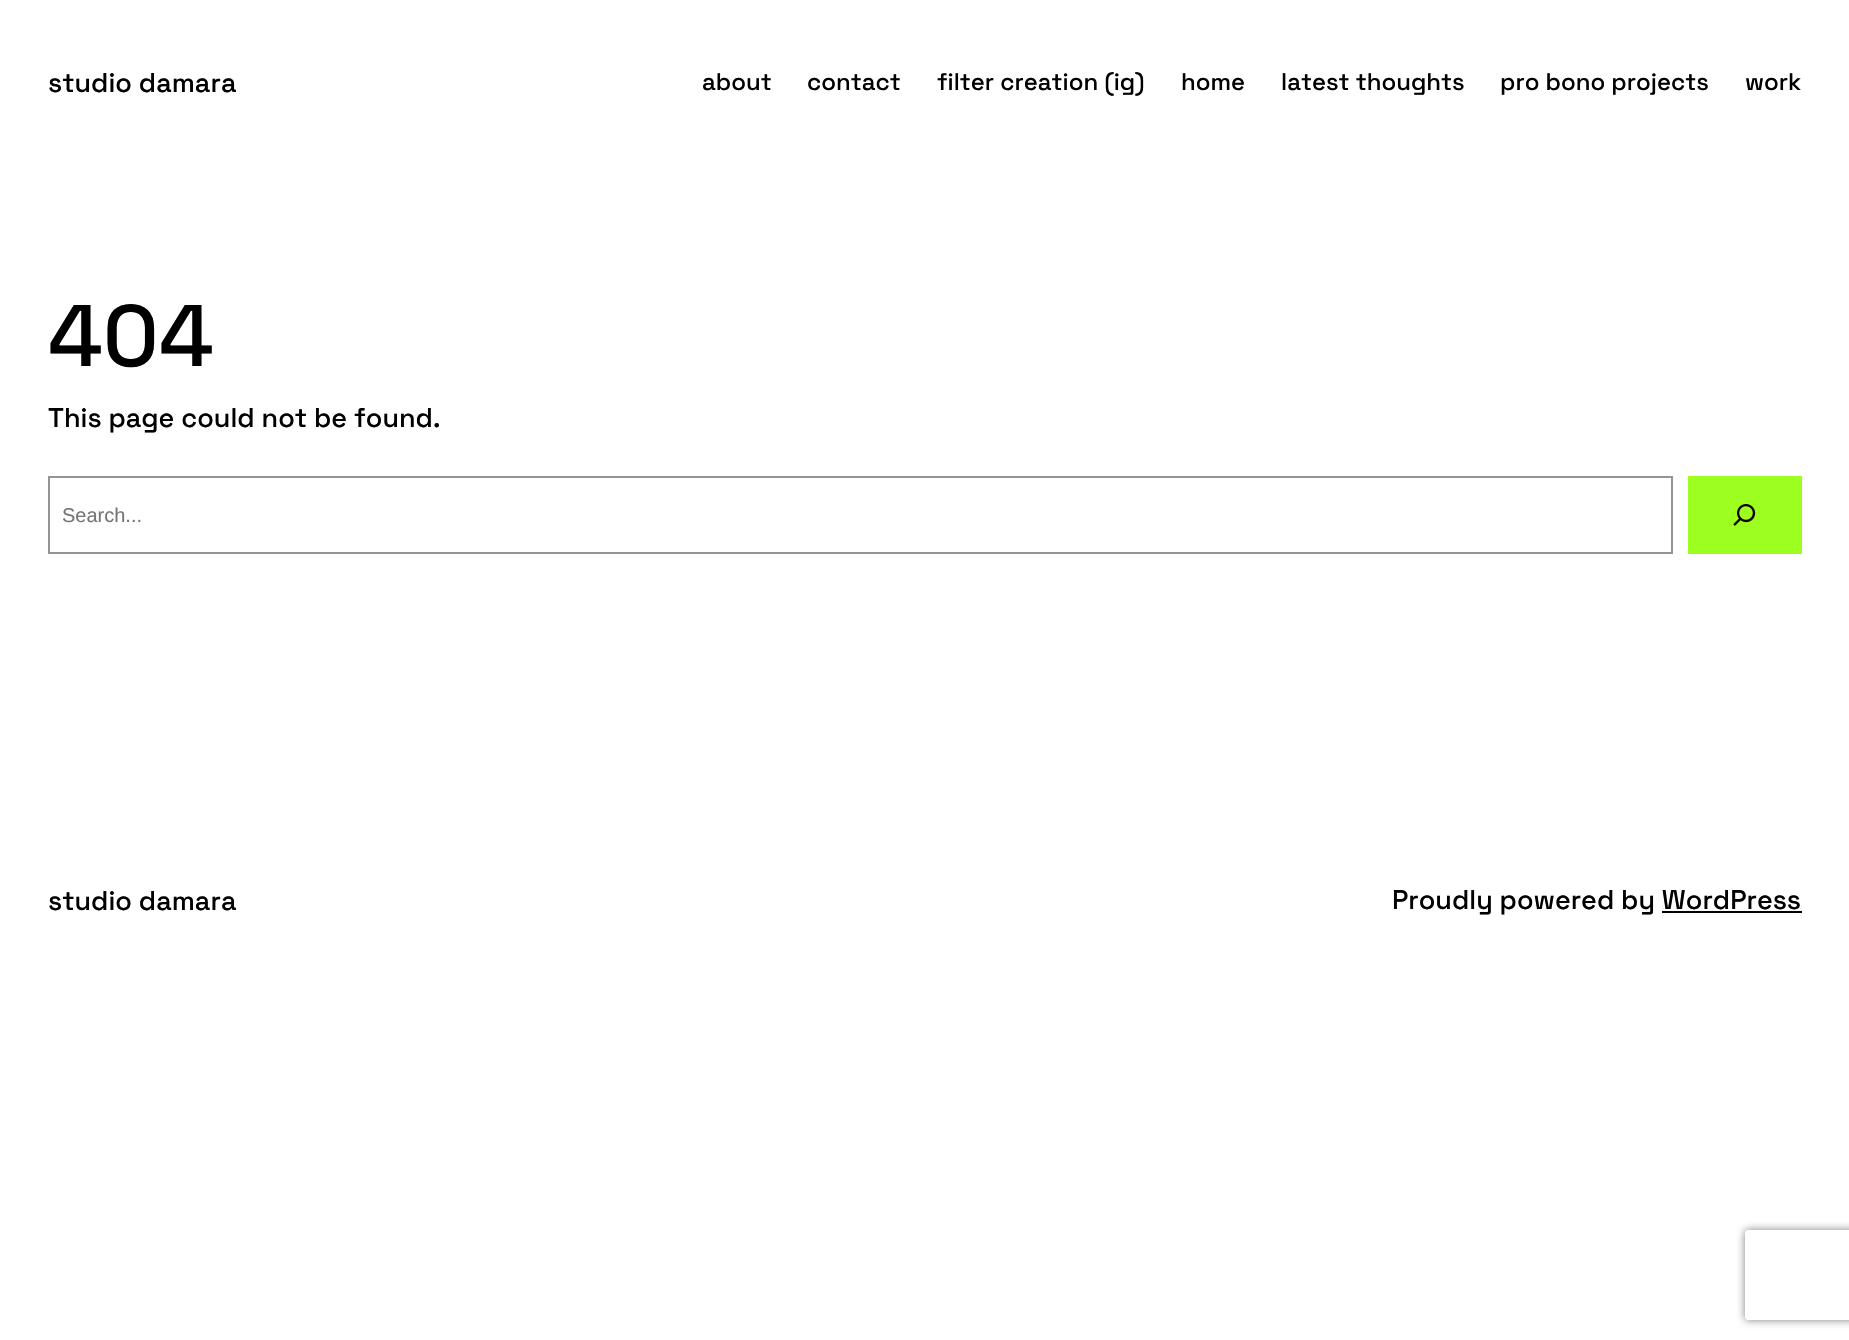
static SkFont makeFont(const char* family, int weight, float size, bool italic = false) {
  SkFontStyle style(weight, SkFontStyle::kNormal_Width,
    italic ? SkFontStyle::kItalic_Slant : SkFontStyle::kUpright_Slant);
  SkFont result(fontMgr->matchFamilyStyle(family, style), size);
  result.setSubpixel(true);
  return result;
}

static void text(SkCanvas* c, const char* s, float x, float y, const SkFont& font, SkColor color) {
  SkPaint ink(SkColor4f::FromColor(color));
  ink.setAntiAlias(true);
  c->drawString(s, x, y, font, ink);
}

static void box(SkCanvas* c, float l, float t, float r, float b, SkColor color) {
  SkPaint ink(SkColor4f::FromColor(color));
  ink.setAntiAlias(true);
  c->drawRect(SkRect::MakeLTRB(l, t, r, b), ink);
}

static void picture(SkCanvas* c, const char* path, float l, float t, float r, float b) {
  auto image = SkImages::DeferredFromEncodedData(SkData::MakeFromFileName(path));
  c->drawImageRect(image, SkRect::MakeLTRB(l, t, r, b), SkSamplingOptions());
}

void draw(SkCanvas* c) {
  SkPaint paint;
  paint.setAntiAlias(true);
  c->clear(0xffffffff);
  SkFont face1 = makeFont("Space Grotesk", 500, 27);
  text(c, "studio damara", 48, 92, face1, 0xff000000);
  SkFont face2 = makeFont("Space Grotesk", 500, 24);
  text(c, "about", 702, 90, face2, 0xff000000);
  text(c, "contact", 807, 90, face2, 0xff000000);
  text(c, "filter creation (ig)", 937, 90, face2, 0xff000000);
  text(c, "home", 1181, 90, face2, 0xff000000);
  text(c, "latest thoughts", 1281, 90, face2, 0xff000000);
  text(c, "pro bono projects", 1500, 90, face2, 0xff000000);
  text(c, "work", 1745, 90, face2, 0xff000000);
  SkFont face3 = makeFont("Space Grotesk", 500, 87);
  text(c, "404", 48, 366, face3, 0xff000000);
  text(c, "This page could not be found.", 48, 427, face1, 0xff000000);
  paint.setStyle(SkPaint::kStroke_Style);
  paint.setStrokeWidth(2);
  paint.setColor(0xff949494);
  c->drawRect(SkRect::MakeLTRB(49, 477, 1672, 553), paint);
  SkFont face4 = makeFont("Liberation Sans", 400, 20);
  text(c, "Search...", 62, 522, face4, 0xff757575);
  box(c, 1688, 476, 1802, 554, 0xff9dff20);
  picture(c, "img_01.png", 1733, 504, 1756, 526);
  text(c, "studio damara", 48, 910, face1, 0xff000000);
  text(c, "Proudly powered by WordPress", 1392, 909, face1, 0xff000000);
  box(c, 1662, 911, 1802, 913, 0xff000000);
  c->save();
  c->clipPath(SkPathBuilder(SkPathFillType::kEvenOdd).moveTo(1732, 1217).lineTo(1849, 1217).lineTo(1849, 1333).lineTo(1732, 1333).close().moveTo(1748, 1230).lineTo(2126, 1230).cubicTo(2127.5f, 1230, 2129, 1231.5f, 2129, 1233).lineTo(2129, 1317).cubicTo(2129, 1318.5f, 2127.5f, 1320, 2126, 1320).lineTo(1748, 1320).cubicTo(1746.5f, 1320, 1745, 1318.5f, 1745, 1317).lineTo(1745, 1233).cubicTo(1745, 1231.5f, 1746.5f, 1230, 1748, 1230).close().detach(), true);
  paint.setStyle(SkPaint::kFill_Style);
  paint.setColor(0xff808080);
  paint.setMaskFilter(SkMaskFilter::MakeBlur(kNormal_SkBlurStyle, 4));
  c->drawRoundRect(SkRect::MakeLTRB(1745, 1230, 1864, 1320), 3, 3, paint);
  paint.setMaskFilter(nullptr);
  c->restore();
}
